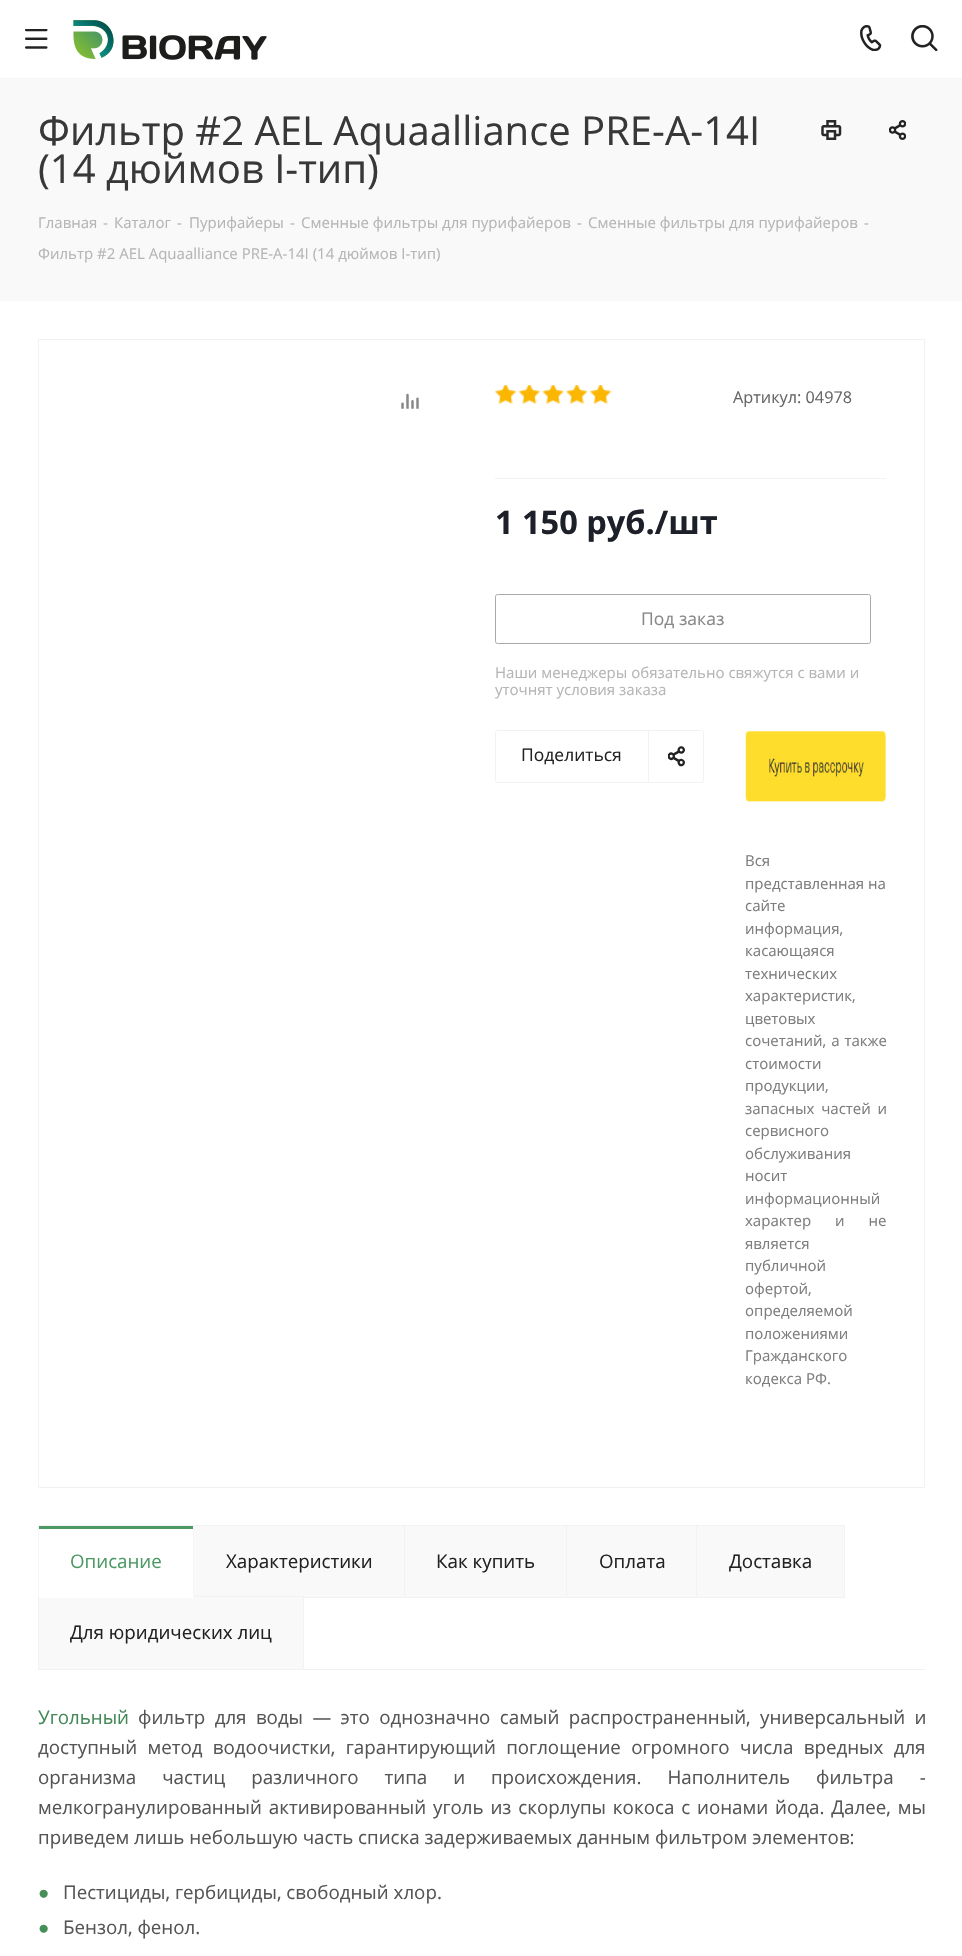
static SkFont makeFont(const char* family, int weight, float size, bool italic = false) {
  SkFontStyle style(weight, SkFontStyle::kNormal_Width,
    italic ? SkFontStyle::kItalic_Slant : SkFontStyle::kUpright_Slant);
  SkFont result(fontMgr->matchFamilyStyle(family, style), size);
  result.setSubpixel(true);
  return result;
}

static void text(SkCanvas* c, const char* s, float x, float y, const SkFont& font, SkColor color) {
  SkPaint ink(SkColor4f::FromColor(color));
  ink.setAntiAlias(true);
  c->drawString(s, x, y, font, ink);
}

static void spacedText(SkCanvas* c, const char* s, float x, float y, const SkFont& font, const SkPaint& ink, float letter, float word) {
  std::vector<SkGlyphID> glyphs(font.countText(s, strlen(s), SkTextEncoding::kUTF8));
  std::vector<float> xs(glyphs.size());
  font.textToGlyphs(s, strlen(s), SkTextEncoding::kUTF8, glyphs);
  font.getXPos(glyphs, xs, x);
  float extra = 0;
  for (size_t i = 0; i < glyphs.size(); i++) {
    xs[i] += extra;
    extra += letter + word * (glyphs[i] == font.unicharToGlyph(' '));
  }
  c->drawTextBlob(SkTextBlob::MakeFromPosHGlyphs(glyphs, xs, y, font), 0, 0, ink);
}

static void box(SkCanvas* c, float l, float t, float r, float b, SkColor color) {
  SkPaint ink(SkColor4f::FromColor(color));
  ink.setAntiAlias(true);
  c->drawRect(SkRect::MakeLTRB(l, t, r, b), ink);
}

static void picture(SkCanvas* c, const char* path, float l, float t, float r, float b) {
  auto image = SkImages::DeferredFromEncodedData(SkData::MakeFromFileName(path));
  c->drawImageRect(image, SkRect::MakeLTRB(l, t, r, b), SkSamplingOptions());
}

void draw(SkCanvas* c) {
  SkPaint paint;
  paint.setAntiAlias(true);
  c->clear(0xffffffff);
  box(c, 0, 78, 962, 79, 0xfff5f5f5);
  picture(c, "img_01.png", 25, 29, 48, 49);
  picture(c, "img_02.png", 73, 20, 267, 60);
  picture(c, "img_03.png", 860, 25, 882, 51);
  picture(c, "img_04.png", 911, 25, 938, 51);
  box(c, 0, 79, 962, 301, 0xfff9f9f9);
  SkFont face1 = makeFont("Open Sans", 400, 40);
  text(c, "Фильтр #2 AEL Aquaalliance PRE-A-14I", 38, 145, face1, 0xff383838);
  text(c, "(14 дюймов I-тип)", 38, 183, face1, 0xff383838);
  picture(c, "img_05.png", 821, 120, 842, 140);
  picture(c, "img_06.png", 889, 120, 906, 140);
  SkFont face2 = makeFont("Open Sans", 400, 15);
  text(c, "Главная", 38, 228, face2, 0xffb6b5b5);
  text(c, "-", 103, 228, face2, 0xffb6b5b5);
  text(c, "Каталог", 114, 228, face2, 0xffb6b5b5);
  text(c, "-", 177, 228, face2, 0xffb6b5b5);
  text(c, "Пурифайеры", 189, 228, face2, 0xffb6b5b5);
  text(c, "-", 290, 228, face2, 0xffb6b5b5);
  text(c, "Сменные фильтры для пурифайеров", 301, 228, face2, 0xffb6b5b5);
  text(c, "-", 577, 228, face2, 0xffb6b5b5);
  text(c, "Сменные фильтры для пурифайеров", 588, 228, face2, 0xffb6b5b5);
  text(c, "-", 864, 228, face2, 0xffb6b5b5);
  text(c, "Фильтр #2 AEL Aquaalliance PRE-A-14I (14 дюймов I-тип)", 38, 259, face2, 0xffb6b5b5);
  paint.setStyle(SkPaint::kStroke_Style);
  paint.setStrokeWidth(1);
  paint.setColor(0xfff2f2f2);
  c->drawRect(SkRect::MakeLTRB(38.5f, 339.5f, 924.5f, 1487.5f), paint);
  picture(c, "img_07.png", 401, 393, 419, 409);
  box(c, 495, 478, 886, 479, 0xfff2f2f2);
  picture(c, "img_08.png", 495, 385, 517, 404);
  picture(c, "img_09.png", 518, 385, 541, 404);
  picture(c, "img_10.png", 542, 385, 564, 404);
  picture(c, "img_11.png", 566, 385, 588, 404);
  picture(c, "img_12.png", 590, 385, 612, 404);
  SkFont face3 = makeFont("Open Sans", 400, 16.25f);
  text(c, "Артикул: 04978", 733, 403, face3, 0xff666666);
  SkFont face4 = makeFont("Open Sans", 700, 32.5f);
  text(c, "1 150 руб./шт", 495, 534, face4, 0xff1d2029);
  paint.setColor(0xffaaaaaa);
  c->drawRoundRect(SkRect::MakeLTRB(495.5f, 594.5f, 870.5f, 643.5f), 2, 2, paint);
  SkFont face5 = makeFont("Open Sans", 400, 17.5f);
  text(c, "Под заказ", 641, 625, face5, 0xff888888);
  text(c, "Наши менеджеры обязательно свяжутся с вами и", 495, 678, face2, 0xffb6b5b5);
  text(c, "уточнят условия заказа", 495, 695, face2, 0xffb6b5b5);
  box(c, 648, 730, 649, 783, 0xfff2f2f2);
  picture(c, "img_13.png", 668, 746, 685, 767);
  paint.setColor(0xfff2f2f2);
  c->drawRoundRect(SkRect::MakeLTRB(495.5f, 730.5f, 703.5f, 782.5f), 2, 2, paint);
  text(c, "Поделиться", 521, 761, face5, 0xff222222);
  picture(c, "img_14.png", 745, 731, 886, 802);
  text(c, "Вся", 745, 866, face2, 0xff7d7d7d);
  text(c, "представленная на", 745, 889, face2, 0xff7d7d7d);
  text(c, "сайте", 745, 911, face2, 0xff7d7d7d);
  text(c, "информация,", 745, 934, face2, 0xff7d7d7d);
  text(c, "касающаяся", 745, 956, face2, 0xff7d7d7d);
  text(c, "технических", 745, 979, face2, 0xff7d7d7d);
  text(c, "характеристик,", 745, 1001, face2, 0xff7d7d7d);
  text(c, "цветовых", 745, 1024, face2, 0xff7d7d7d);
  paint.setStyle(SkPaint::kFill_Style);
  paint.setColor(0xff7d7d7d);
  spacedText(c, "сочетаний, а также", 745, 1046, face2, paint, 0, 1);
  text(c, "стоимости", 745, 1069, face2, 0xff7d7d7d);
  text(c, "продукции,", 745, 1091, face2, 0xff7d7d7d);
  spacedText(c, "запасных частей и", 745, 1114, face2, paint, 0, 3);
  text(c, "сервисного", 745, 1136, face2, 0xff7d7d7d);
  text(c, "обслуживания", 745, 1159, face2, 0xff7d7d7d);
  text(c, "носит", 745, 1181, face2, 0xff7d7d7d);
  text(c, "информационный", 745, 1204, face2, 0xff7d7d7d);
  spacedText(c, "характер и не", 745, 1226, face2, paint, 0, 20);
  text(c, "является", 745, 1249, face2, 0xff7d7d7d);
  text(c, "публичной", 745, 1271, face2, 0xff7d7d7d);
  text(c, "офертой,", 745, 1294, face2, 0xff7d7d7d);
  text(c, "определяемой", 745, 1316, face2, 0xff7d7d7d);
  text(c, "положениями", 745, 1339, face2, 0xff7d7d7d);
  text(c, "Гражданского", 745, 1361, face2, 0xff7d7d7d);
  text(c, "кодекса РФ.", 745, 1384, face2, 0xff7d7d7d);
  box(c, 304, 1669, 925, 1670, 0xfff2f2f2);
  paint.setColor(0xfff9f9fa);
  c->drawRect(SkRect::MakeLTRB(193.5f, 1525.5f, 404.5f, 1597.5f), paint);
  paint.setStyle(SkPaint::kStroke_Style);
  paint.setColor(0xfff2f2f2);
  c->drawRect(SkRect::MakeLTRB(193.5f, 1525.5f, 404.5f, 1597.5f), paint);
  paint.setStyle(SkPaint::kFill_Style);
  paint.setColor(0xfff9f9fa);
  c->drawRect(SkRect::MakeLTRB(38.5f, 1596.5f, 303.5f, 1669.5f), paint);
  paint.setStyle(SkPaint::kStroke_Style);
  paint.setColor(0xfff2f2f2);
  c->drawRect(SkRect::MakeLTRB(38.5f, 1596.5f, 303.5f, 1669.5f), paint);
  box(c, 39, 1596, 193, 1598, 0xffffffff);
  box(c, 38, 1525, 194, 1526, 0xfff5f5f5);
  box(c, 193, 1525, 194, 1598, 0xfff5f5f5);
  box(c, 38, 1596, 194, 1597, 0xffffffff);
  box(c, 38, 1525, 39, 1598, 0xfff5f5f5);
  box(c, 39, 1526, 193, 1529, 0xff4c9963);
  SkFont face6 = makeFont("Open Sans", 400, 18.75f);
  text(c, "Описание", 70, 1568, face6, 0xff4c9963);
  text(c, "Характеристики", 226, 1568, face6, 0xff222222);
  box(c, 405, 1526, 566, 1597, 0xfff9f9fa);
  c->drawRect(SkRect::MakeLTRB(404.5f, 1525.5f, 567.5f, 1597.5f), paint);
  text(c, "Как купить", 436, 1568, face6, 0xff222222);
  box(c, 567, 1526, 696, 1597, 0xfff9f9fa);
  c->drawRect(SkRect::MakeLTRB(566.5f, 1525.5f, 697.5f, 1597.5f), paint);
  text(c, "Оплата", 599, 1568, face6, 0xff222222);
  paint.setStyle(SkPaint::kFill_Style);
  paint.setColor(0xfff9f9fa);
  c->drawRect(SkRect::MakeLTRB(696.5f, 1525.5f, 844.5f, 1597.5f), paint);
  paint.setStyle(SkPaint::kStroke_Style);
  paint.setColor(0xfff2f2f2);
  c->drawRect(SkRect::MakeLTRB(696.5f, 1525.5f, 844.5f, 1597.5f), paint);
  text(c, "Доставка", 729, 1568, face6, 0xff222222);
  text(c, "Для юридических лиц", 70, 1639, face6, 0xff222222);
  text(c, "Угольный", 38, 1724, face6, 0xff438958);
  paint.setStyle(SkPaint::kFill_Style);
  paint.setColor(0xff555555);
  spacedText(c, "фильтр для воды — это однозначно самый распространенный, универсальный и", 138, 1724, face6, paint, 0, 4.5f);
  spacedText(c, "доступный метод водоочистки, гарантирующий поглощение огромного числа вредных для", 38, 1754, face6, paint, 0, 5.5f);
  spacedText(c, "организма частиц различного типа и происхождения. Наполнитель фильтра -", 38, 1784, face6, paint, 0, 21);
  spacedText(c, "мелкогранулированный активированный уголь из скорлупы кокоса с ионами йода. Далее, мы", 38, 1814, face6, paint, 0, 2);
  text(c, "приведем лишь небольшую часть списка задерживаемых данным фильтром элементов:", 38, 1844, face6, 0xff555555);
  SkFont face7 = makeFont("Liberation Sans", 400, 18.75f);
  text(c, "●", 38, 1899, face7, 0xff469057);
  text(c, "Пестициды, гербициды, свободный хлор.", 63, 1899, face6, 0xff555555);
  text(c, "●", 38, 1934, face7, 0xff469057);
  text(c, "Бензол, фенол.", 63, 1934, face6, 0xff555555);
}
